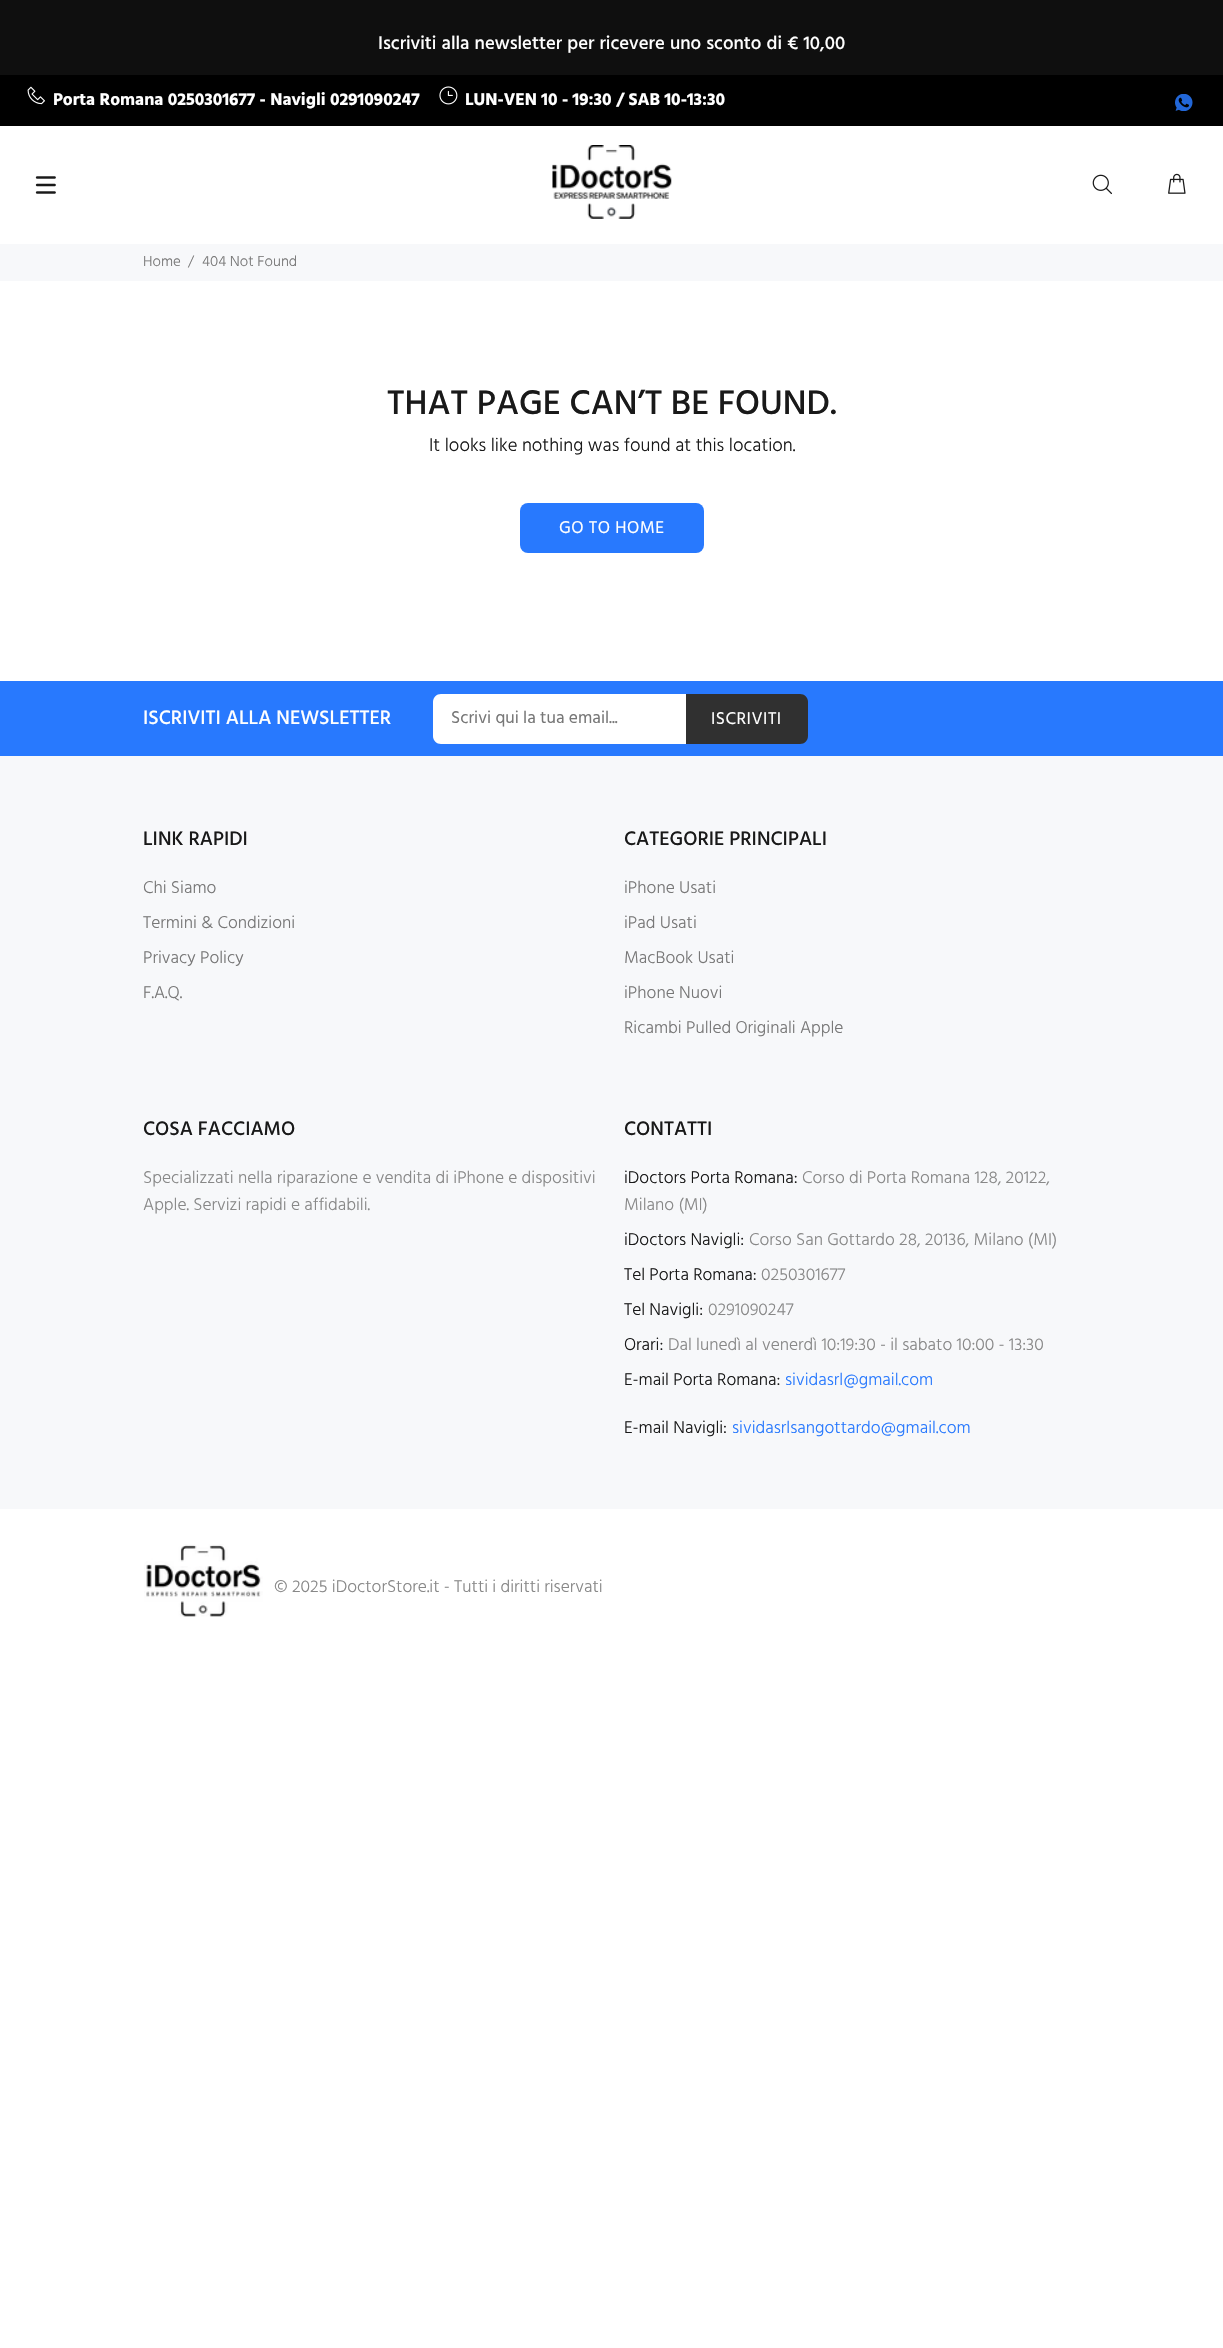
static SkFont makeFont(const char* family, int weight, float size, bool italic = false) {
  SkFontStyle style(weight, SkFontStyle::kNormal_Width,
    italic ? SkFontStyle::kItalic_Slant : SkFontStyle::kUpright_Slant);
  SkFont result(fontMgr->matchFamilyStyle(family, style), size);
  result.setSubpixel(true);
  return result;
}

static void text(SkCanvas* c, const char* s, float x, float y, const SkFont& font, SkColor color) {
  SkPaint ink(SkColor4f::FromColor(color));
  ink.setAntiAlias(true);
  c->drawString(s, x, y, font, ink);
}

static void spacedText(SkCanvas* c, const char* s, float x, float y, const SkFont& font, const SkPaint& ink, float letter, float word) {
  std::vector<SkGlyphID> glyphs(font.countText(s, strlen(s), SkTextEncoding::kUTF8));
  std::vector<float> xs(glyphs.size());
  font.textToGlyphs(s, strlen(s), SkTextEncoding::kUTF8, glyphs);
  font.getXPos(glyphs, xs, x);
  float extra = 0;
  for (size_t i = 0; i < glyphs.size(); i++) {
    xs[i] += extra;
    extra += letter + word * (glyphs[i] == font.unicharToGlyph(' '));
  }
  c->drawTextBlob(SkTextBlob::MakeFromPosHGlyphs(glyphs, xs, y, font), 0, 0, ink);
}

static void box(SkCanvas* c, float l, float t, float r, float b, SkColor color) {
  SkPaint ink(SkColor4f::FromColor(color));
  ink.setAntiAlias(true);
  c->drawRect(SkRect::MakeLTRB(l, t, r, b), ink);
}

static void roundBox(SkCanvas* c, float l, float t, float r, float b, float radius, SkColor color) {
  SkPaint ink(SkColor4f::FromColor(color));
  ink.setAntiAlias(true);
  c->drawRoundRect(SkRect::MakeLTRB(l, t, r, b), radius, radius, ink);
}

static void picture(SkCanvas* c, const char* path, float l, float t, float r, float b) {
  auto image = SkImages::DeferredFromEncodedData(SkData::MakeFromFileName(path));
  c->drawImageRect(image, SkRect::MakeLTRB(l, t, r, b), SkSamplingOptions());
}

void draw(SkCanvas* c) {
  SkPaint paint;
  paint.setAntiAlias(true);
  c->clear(0xffffffff);
  box(c, 0, 0, 1223, 75, 0xff0f0f0f);
  SkFont face1 = makeFont("Hind", 500, 18.75f);
  paint.setColor(0xffffffff);
  spacedText(c, "Iscriviti alla newsletter per ricevere uno sconto di € 10,00", 378, 49, face1, paint, 0, 0.5f);
  box(c, 0, 75, 1223, 126, 0xff000000);
  picture(c, "img_01.png", 27, 86, 45, 105);
  SkFont face2 = makeFont("Hind", 700, 17.5f);
  text(c, "Porta Romana 0250301677 - Navigli 0291090247", 53, 105, face2, 0xffffffff);
  picture(c, "img_02.png", 439, 86, 458, 105);
  text(c, "LUN-VEN 10 - 19:30 / SAB 10-13:30", 465, 105, face2, 0xffffffff);
  picture(c, "img_03.png", 1175, 94, 1193, 111);
  picture(c, "img_04.png", 35, 176, 56, 194);
  picture(c, "img_05.png", 552, 145, 672, 219);
  picture(c, "img_06.png", 1092, 174, 1112, 195);
  picture(c, "img_07.png", 1168, 173, 1186, 194);
  box(c, 0, 244, 1223, 281, 0xfff7f8fa);
  SkFont face3 = makeFont("Hind", 300, 15);
  text(c, "Home", 143, 266, face3, 0xff777777);
  text(c, "/", 188, 266, face3, 0xff777777);
  text(c, "404 Not Found", 202, 266, face3, 0xff777777);
  SkFont face4 = makeFont("Hind", 500, 35);
  text(c, "THAT PAGE CAN’T BE FOUND.", 387, 414, face4, 0xff191919);
  SkFont face5 = makeFont("Hind", 300, 18.75f);
  text(c, "It looks like nothing was found at this location.", 429, 451, face5, 0xff191919);
  roundBox(c, 520, 503, 704, 553, 8, 0xff2879fe);
  SkFont face6 = makeFont("Hind", 400, 17.5f);
  spacedText(c, "GO TO HOME", 559, 533, face6, paint, 0.5f, 0);
  box(c, 0, 756, 1223, 1509, 0xfff7f8fa);
  box(c, 0, 681, 1223, 756, 0xff2879fe);
  SkFont face7 = makeFont("Hind", 500, 20);
  text(c, "ISCRIVITI ALLA NEWSLETTER", 143, 724, face7, 0xffffffff);
  c->drawPath(SkPathBuilder().moveTo(441, 694).lineTo(686, 694).lineTo(686, 744).lineTo(441, 744).cubicTo(436.5f, 744, 433, 740.5f, 433, 736).lineTo(433, 702).cubicTo(433, 697.5f, 436.5f, 694, 441, 694).close().detach(), paint);
  text(c, "Scrivi qui la tua email...", 451, 723, face6, 0xff777777);
  paint.setColor(0xff303030);
  c->drawPath(SkPathBuilder().moveTo(686, 694).lineTo(800, 694).cubicTo(804.5f, 694, 808, 697.5f, 808, 702).lineTo(808, 736).cubicTo(808, 740.5f, 804.5f, 744, 800, 744).lineTo(686, 744).close().detach(), paint);
  paint.setColor(0xffffffff);
  spacedText(c, "ISCRIVITI", 711, 724, face6, paint, 0.5f, 0);
  text(c, "LINK RAPIDI", 143, 845, face7, 0xff191919);
  SkFont face8 = makeFont("Hind", 300, 17.5f);
  text(c, "Chi Siamo", 143, 893, face8, 0xff777777);
  text(c, "Termini & Condizioni", 143, 928, face8, 0xff777777);
  text(c, "Privacy Policy", 143, 963, face8, 0xff777777);
  text(c, "F.A.Q.", 143, 998, face8, 0xff777777);
  text(c, "CATEGORIE PRINCIPALI", 624, 845, face7, 0xff191919);
  text(c, "iPhone Usati", 624, 893, face8, 0xff777777);
  text(c, "iPad Usati", 624, 928, face8, 0xff777777);
  text(c, "MacBook Usati", 624, 963, face8, 0xff777777);
  text(c, "iPhone Nuovi", 624, 998, face8, 0xff777777);
  text(c, "Ricambi Pulled Originali Apple", 624, 1033, face8, 0xff777777);
  text(c, "COSA FACCIAMO", 143, 1135, face7, 0xff191919);
  text(c, "Specializzati nella riparazione e vendita di iPhone e dispositivi", 143, 1183, face8, 0xff888888);
  text(c, "Apple. Servizi rapidi e affidabili.", 143, 1210, face8, 0xff888888);
  text(c, "CONTATTI", 624, 1135, face7, 0xff191919);
  text(c, "iDoctors Porta Romana:", 624, 1183, face8, 0xff191919);
  text(c, "Corso di Porta Romana 128, 20122,", 802, 1183, face8, 0xff888888);
  text(c, "Milano (MI)", 624, 1210, face8, 0xff888888);
  text(c, "iDoctors Navigli:", 624, 1245, face8, 0xff191919);
  text(c, "Corso San Gottardo 28, 20136, Milano (MI)", 749, 1245, face8, 0xff888888);
  text(c, "Tel Porta Romana:", 624, 1280, face8, 0xff191919);
  text(c, "0250301677", 761, 1280, face8, 0xff888888);
  text(c, "Tel Navigli:", 624, 1315, face8, 0xff191919);
  text(c, "0291090247", 708, 1315, face8, 0xff888888);
  text(c, "Orari:", 624, 1350, face8, 0xff191919);
  text(c, "Dal lunedì al venerdì 10:19:30 - il sabato 10:00 - 13:30", 668, 1350, face8, 0xff888888);
  text(c, "E-mail Porta Romana:", 624, 1385, face8, 0xff191919);
  text(c, "sividasrl@gmail.com", 785, 1385, face8, 0xff2879fe);
  text(c, "E-mail Navigli:", 624, 1433, face8, 0xff191919);
  text(c, "sividasrlsangottardo@gmail.com", 732, 1433, face8, 0xff2879fe);
  picture(c, "img_08.png", 144, 1544, 263, 1617);
  text(c, "© 2025 iDoctorStore.it - Tutti i diritti riservati", 274, 1592, face8, 0xff888888);
}
